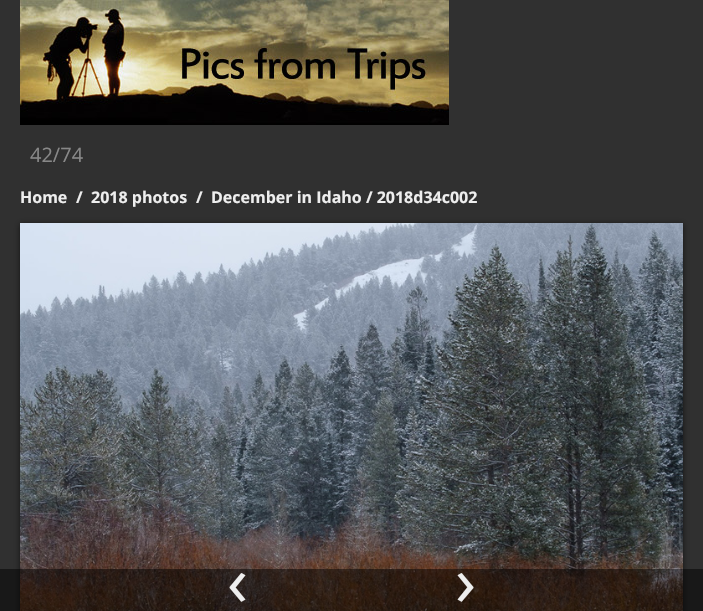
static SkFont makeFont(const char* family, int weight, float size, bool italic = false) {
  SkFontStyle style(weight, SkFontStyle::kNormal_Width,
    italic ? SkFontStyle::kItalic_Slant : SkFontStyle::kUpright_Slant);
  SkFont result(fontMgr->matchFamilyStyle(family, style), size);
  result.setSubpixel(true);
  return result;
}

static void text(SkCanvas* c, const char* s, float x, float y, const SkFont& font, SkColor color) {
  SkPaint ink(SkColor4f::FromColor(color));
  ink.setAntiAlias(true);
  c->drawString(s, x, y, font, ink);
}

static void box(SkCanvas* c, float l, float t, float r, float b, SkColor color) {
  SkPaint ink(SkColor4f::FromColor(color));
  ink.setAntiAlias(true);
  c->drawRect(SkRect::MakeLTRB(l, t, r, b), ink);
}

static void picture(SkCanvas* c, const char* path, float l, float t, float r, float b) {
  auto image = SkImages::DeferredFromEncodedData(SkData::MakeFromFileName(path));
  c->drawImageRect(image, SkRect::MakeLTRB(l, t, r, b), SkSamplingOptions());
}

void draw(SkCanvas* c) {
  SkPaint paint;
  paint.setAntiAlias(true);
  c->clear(0xff303030);
  picture(c, "img_01.png", 20, 0, 449, 125);
  SkFont face1 = makeFont("Open Sans", 400, 20);
  text(c, "42/74", 30, 162, face1, 0xff888888);
  SkFont face2 = makeFont("Open Sans", 700, 16);
  text(c, "Home", 20, 203, face2, 0xffeeeeee);
  text(c, "/", 76, 203, face2, 0xffeeeeee);
  text(c, "2018 photos", 91, 203, face2, 0xffeeeeee);
  text(c, "/", 196, 203, face2, 0xffeeeeee);
  text(c, "December in Idaho / 2018d34c002", 211, 203, face2, 0xffeeeeee);
  paint.setColor(0x99000000);
  paint.setMaskFilter(SkMaskFilter::MakeBlur(kNormal_SkBlurStyle, 3));
  c->drawRect(SkRect::MakeLTRB(20, 224, 683, 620), paint);
  paint.setMaskFilter(nullptr);
  picture(c, "img_02.png", 20, 223, 683, 611);
  box(c, 0, 569, 703, 611, 0x80000000);
  SkFont face3 = makeFont("Open Sans", 400, 70);
  text(c, "‹", 227, 606, face3, 0xffeeeeee);
  text(c, "›", 455, 606, face3, 0xffeeeeee);
}
